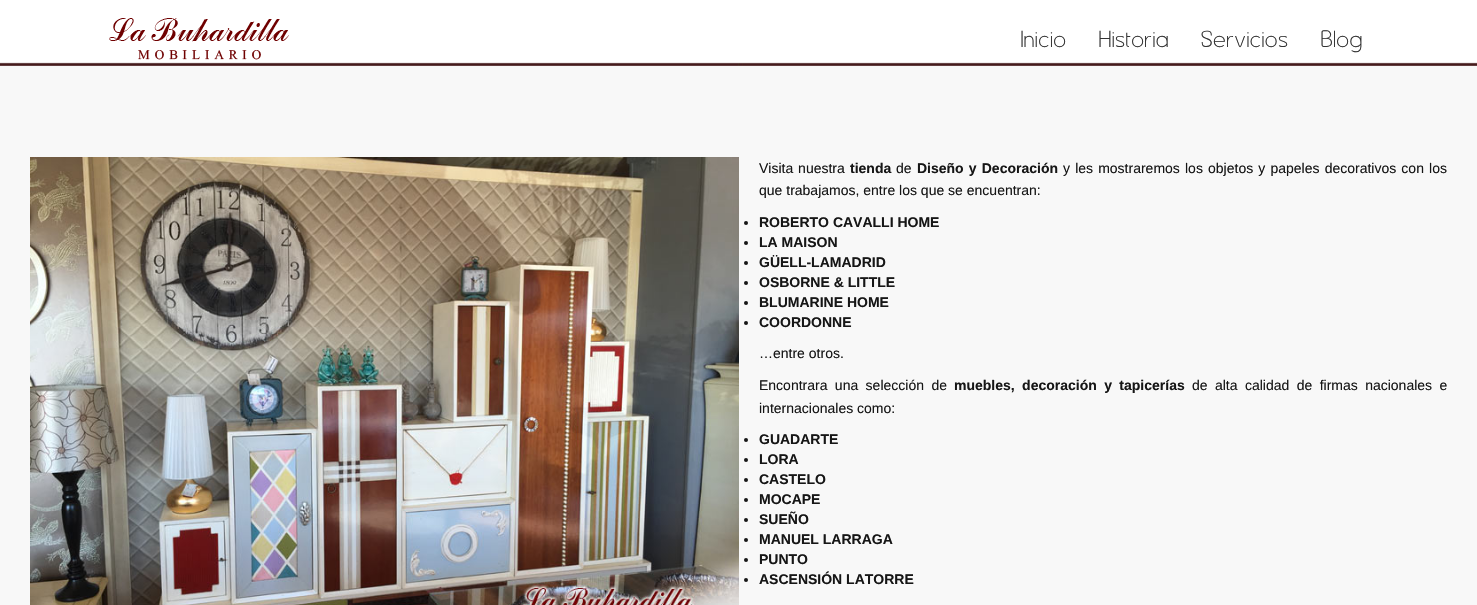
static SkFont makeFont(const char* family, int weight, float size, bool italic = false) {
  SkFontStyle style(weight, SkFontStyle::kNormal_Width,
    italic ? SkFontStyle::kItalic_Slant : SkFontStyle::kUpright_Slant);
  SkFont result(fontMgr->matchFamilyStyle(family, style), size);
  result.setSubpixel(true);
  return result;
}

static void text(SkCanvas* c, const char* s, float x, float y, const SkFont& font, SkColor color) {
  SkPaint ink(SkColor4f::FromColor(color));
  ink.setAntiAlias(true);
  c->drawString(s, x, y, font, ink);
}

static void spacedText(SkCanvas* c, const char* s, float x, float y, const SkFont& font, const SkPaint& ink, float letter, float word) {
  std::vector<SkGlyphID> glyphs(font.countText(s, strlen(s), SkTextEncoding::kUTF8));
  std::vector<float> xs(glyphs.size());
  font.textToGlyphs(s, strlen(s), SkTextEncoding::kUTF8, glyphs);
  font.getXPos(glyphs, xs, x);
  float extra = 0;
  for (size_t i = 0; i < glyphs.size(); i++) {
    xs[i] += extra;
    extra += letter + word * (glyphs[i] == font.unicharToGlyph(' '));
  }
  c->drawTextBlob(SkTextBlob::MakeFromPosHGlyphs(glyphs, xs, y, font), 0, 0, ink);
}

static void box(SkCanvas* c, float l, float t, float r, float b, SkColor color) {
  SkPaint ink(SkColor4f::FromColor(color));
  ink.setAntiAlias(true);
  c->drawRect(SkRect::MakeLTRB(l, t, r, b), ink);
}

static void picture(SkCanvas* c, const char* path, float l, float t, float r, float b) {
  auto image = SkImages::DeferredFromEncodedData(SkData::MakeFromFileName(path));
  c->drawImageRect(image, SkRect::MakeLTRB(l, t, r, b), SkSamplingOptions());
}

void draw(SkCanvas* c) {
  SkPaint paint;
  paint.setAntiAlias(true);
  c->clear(0xfff8f8f8);
  box(c, 0, 0, 1477, 66, 0xffffffff);
  picture(c, "img_01.png", 0, 62, 1477, 66);
  picture(c, "img_02.png", 109, 18, 289, 60);
  SkFont face1 = makeFont("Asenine", 400, 28);
  paint.setColor(0xff333333);
  spacedText(c, "Inicio", 1021, 47, face1, paint, 1, 0);
  spacedText(c, "Historia", 1099, 47, face1, paint, 1, 0);
  spacedText(c, "Servicios", 1201, 47, face1, paint, 1, 0);
  spacedText(c, "Blog", 1321, 47, face1, paint, 1, 0);
  picture(c, "img_03.png", 30, 157, 739, 605);
  SkFont face2 = makeFont("Liberation Sans", 400, 14);
  paint.setColor(0xff161616);
  spacedText(c, "Visita nuestra", 759, 173, face2, paint, 0, 1);
  SkFont face3 = makeFont("Liberation Sans", 700, 14);
  text(c, "tienda", 850, 173, face3, 0xff161616);
  text(c, "de", 896, 173, face2, 0xff161616);
  spacedText(c, "Diseño y Decoración", 917, 173, face3, paint, 0, 1.25f);
  spacedText(c, "y les mostraremos los objetos y papeles decorativos con los", 1063, 173, face2, paint, 0, 1.25f);
  text(c, "que trabajamos, entre los que se encuentran:", 759, 195, face2, 0xff161616);
  c->drawCircle(746, 223, 2, paint);
  text(c, "ROBERTO CAVALLI HOME", 759, 227, face3, 0xff161616);
  c->drawCircle(746, 243, 2, paint);
  text(c, "LA MAISON", 759, 247, face3, 0xff161616);
  c->drawCircle(746, 263, 2, paint);
  text(c, "GÜELL-LAMADRID", 759, 267, face3, 0xff161616);
  c->drawCircle(746, 283, 2, paint);
  text(c, "OSBORNE & LITTLE", 759, 287, face3, 0xff161616);
  c->drawCircle(746, 303, 2, paint);
  text(c, "BLUMARINE HOME", 759, 307, face3, 0xff161616);
  c->drawCircle(746, 323, 2, paint);
  text(c, "COORDONNE", 759, 327, face3, 0xff161616);
  text(c, "…entre otros.", 759, 358, face2, 0xff161616);
  spacedText(c, "Encontrara una selección de", 759, 390, face2, paint, 0, 3.5f);
  spacedText(c, "muebles, decoración y tapicerías", 954, 390, face3, paint, 0, 3.5f);
  spacedText(c, "de alta calidad de firmas nacionales e", 1192, 390, face2, paint, 0, 3.5f);
  text(c, "internacionales como:", 759, 413, face2, 0xff161616);
  c->drawCircle(746, 440, 2, paint);
  text(c, "GUADARTE", 759, 444, face3, 0xff161616);
  c->drawCircle(746, 460, 2, paint);
  text(c, "LORA", 759, 464, face3, 0xff161616);
  c->drawCircle(746, 480, 2, paint);
  text(c, "CASTELO", 759, 484, face3, 0xff161616);
  c->drawCircle(746, 500, 2, paint);
  text(c, "MOCAPE", 759, 504, face3, 0xff161616);
  c->drawCircle(746, 520, 2, paint);
  text(c, "SUEÑO", 759, 524, face3, 0xff161616);
  c->drawCircle(746, 540, 2, paint);
  text(c, "MANUEL LARRAGA", 759, 544, face3, 0xff161616);
  c->drawCircle(746, 560, 2, paint);
  text(c, "PUNTO", 759, 564, face3, 0xff161616);
  c->drawCircle(746, 580, 2, paint);
  text(c, "ASCENSIÓN LATORRE", 759, 584, face3, 0xff161616);
}
